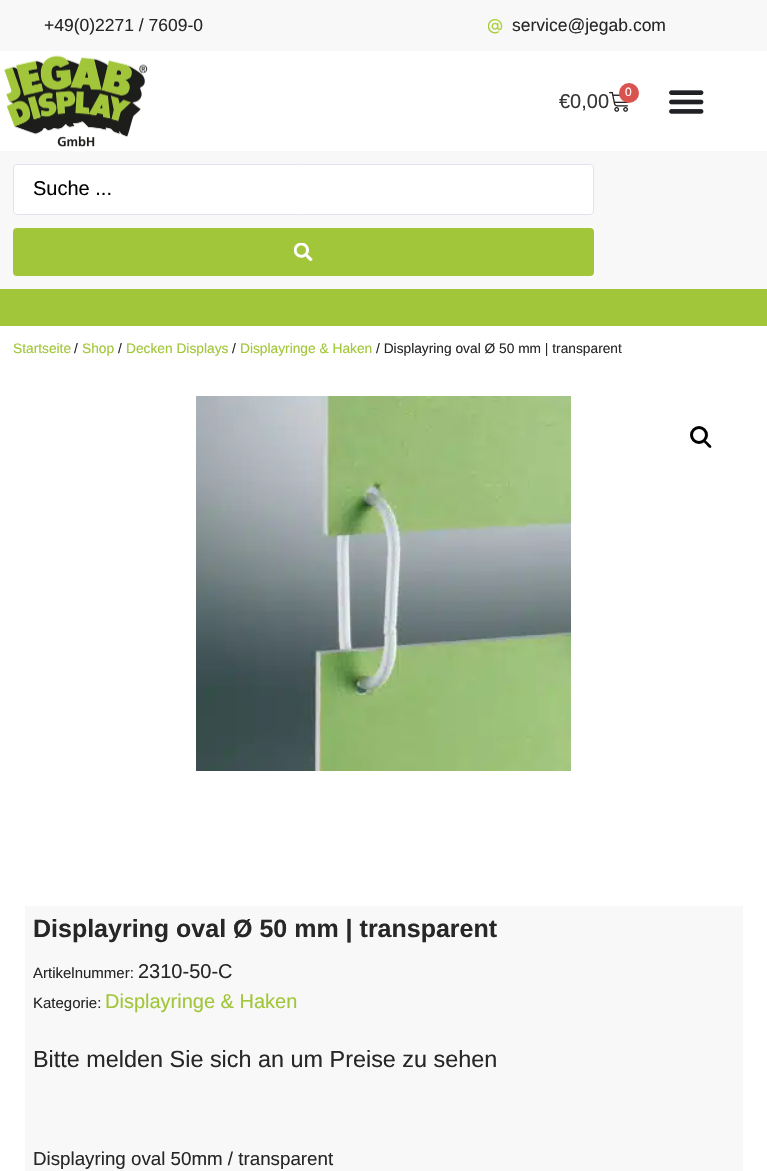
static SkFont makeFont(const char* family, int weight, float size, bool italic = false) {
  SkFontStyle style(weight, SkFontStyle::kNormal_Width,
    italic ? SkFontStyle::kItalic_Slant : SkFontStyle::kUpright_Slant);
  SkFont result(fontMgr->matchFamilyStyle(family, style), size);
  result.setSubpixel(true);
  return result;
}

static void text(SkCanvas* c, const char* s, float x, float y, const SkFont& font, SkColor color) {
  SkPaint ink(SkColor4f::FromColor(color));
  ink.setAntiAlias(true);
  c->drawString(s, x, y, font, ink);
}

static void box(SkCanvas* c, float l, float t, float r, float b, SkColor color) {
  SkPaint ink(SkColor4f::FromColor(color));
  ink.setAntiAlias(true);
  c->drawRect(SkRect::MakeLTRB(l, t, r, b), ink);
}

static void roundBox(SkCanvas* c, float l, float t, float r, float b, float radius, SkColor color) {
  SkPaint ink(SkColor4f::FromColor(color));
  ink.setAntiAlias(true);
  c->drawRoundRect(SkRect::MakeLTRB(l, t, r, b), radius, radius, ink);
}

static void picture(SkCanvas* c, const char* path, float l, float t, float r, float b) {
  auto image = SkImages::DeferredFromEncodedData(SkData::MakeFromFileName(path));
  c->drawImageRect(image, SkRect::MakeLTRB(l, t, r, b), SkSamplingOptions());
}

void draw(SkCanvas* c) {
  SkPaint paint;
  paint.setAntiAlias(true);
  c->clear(0xffffffff);
  box(c, 0, 0, 767, 51, 0xfff8f8f8);
  SkFont face1 = makeFont("Liberation Sans", 400, 17.5f);
  text(c, "+49(0)2271 / 7609-0", 44, 31, face1, 0xff272727);
  picture(c, "img_01.png", 488, 19, 503, 34);
  text(c, "service@jegab.com", 512, 31, face1, 0xff272727);
  picture(c, "img_02.png", 4, 55, 148, 147);
  picture(c, "img_03.png", 609, 91, 629, 112);
  paint.setColor(0xffd9534f);
  c->drawCircle(629, 93, 10, paint);
  SkFont face2 = makeFont("Liberation Sans", 400, 12);
  text(c, "0", 625, 96, face2, 0xffffffff);
  SkFont face3 = makeFont("Liberation Sans", 400, 20);
  text(c, "€0,00", 559, 108, face3, 0xff363636);
  picture(c, "img_04.png", 669, 90, 704, 114);
  box(c, 0, 151, 767, 289, 0xfff8f8f8);
  paint.setColor(0xffffffff);
  c->drawRoundRect(SkRect::MakeLTRB(13.5f, 164.5f, 593.5f, 214.5f), 3.5f, 3.5f, paint);
  paint.setStyle(SkPaint::kStroke_Style);
  paint.setStrokeWidth(1);
  paint.setColor(0xffe1e5eb);
  c->drawRoundRect(SkRect::MakeLTRB(13.5f, 164.5f, 593.5f, 214.5f), 3.5f, 3.5f, paint);
  text(c, "Suche ...", 33, 195, face3, 0xff000000);
  roundBox(c, 13, 228, 594, 276, 4, 0xffa2c63a);
  picture(c, "img_05.png", 294, 243, 313, 261);
  box(c, 0, 289, 767, 326, 0xffa2c63a);
  SkFont face4 = makeFont("Liberation Sans", 400, 13.75f);
  text(c, "Startseite", 13, 353, face4, 0xffa2c63a);
  text(c, "/", 74, 353, face4, 0xff272727);
  text(c, "Shop", 82, 353, face4, 0xffa2c63a);
  text(c, "/", 118, 353, face4, 0xff272727);
  text(c, "Decken Displays", 126, 353, face4, 0xffa2c63a);
  text(c, "/", 232, 353, face4, 0xff272727);
  text(c, "Displayringe & Haken", 240, 353, face4, 0xffa2c63a);
  text(c, "/ Displayring oval Ø 50 mm | transparent", 376, 353, face4, 0xff272727);
  picture(c, "img_06.png", 196, 396, 571, 771);
  paint.setStrokeWidth(3);
  paint.setColor(0xff000000);
  c->drawCircle(699, 435, 7.5f, paint);
  paint.setStyle(SkPaint::kFill_Style);
  c->drawPath(SkPathBuilder().moveTo(704, 440.5f).cubicTo(705.5f, 439, 707.5f, 442.5f, 708.5f, 443).cubicTo(709, 444, 712.5f, 446, 711, 447.5f).cubicTo(709.5f, 449, 707.5f, 446, 706.5f, 445).cubicTo(706, 444, 702.5f, 442, 704, 440.5f).close().detach(), paint);
  box(c, 25, 906, 743, 1171, 0xfff8f8f8);
  SkFont face5 = makeFont("Liberation Sans", 700, 25);
  text(c, "Displayring oval Ø 50 mm | transparent", 33, 937, face5, 0xff272727);
  SkFont face6 = makeFont("Liberation Sans", 400, 15);
  text(c, "Artikelnummer:", 33, 978, face6, 0xff272727);
  text(c, "2310-50-C", 138, 978, face3, 0xff272727);
  text(c, "Kategorie:", 33, 1008, face6, 0xff272727);
  text(c, "Displayringe & Haken", 105, 1008, face3, 0xffa2c63a);
  SkFont face7 = makeFont("Liberation Sans", 400, 23.4f);
  text(c, "Bitte melden Sie sich an um Preise zu sehen", 33, 1067, face7, 0xff272727);
  SkFont face8 = makeFont("Liberation Sans", 400, 18.75f);
  text(c, "Displayring oval 50mm / transparent", 33, 1165, face8, 0xff272727);
}
